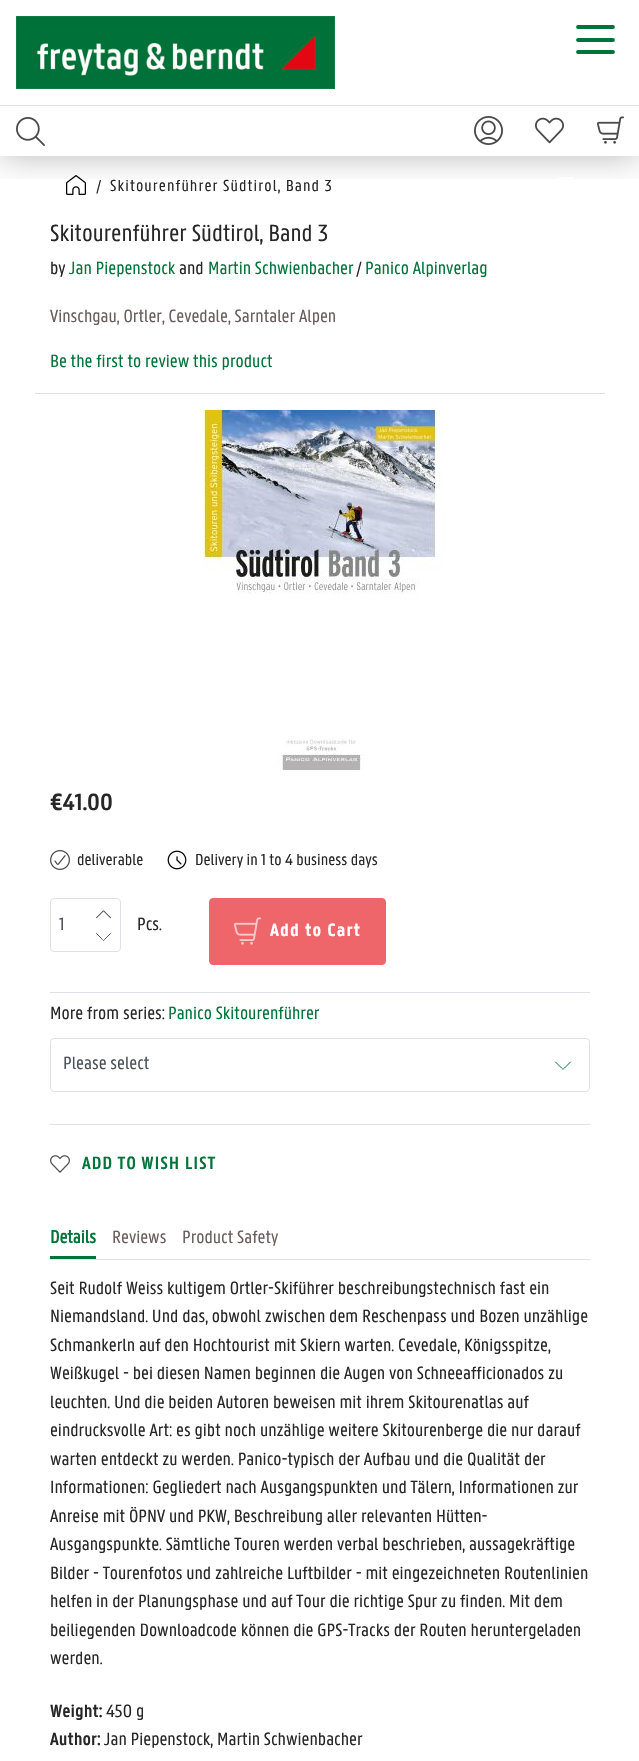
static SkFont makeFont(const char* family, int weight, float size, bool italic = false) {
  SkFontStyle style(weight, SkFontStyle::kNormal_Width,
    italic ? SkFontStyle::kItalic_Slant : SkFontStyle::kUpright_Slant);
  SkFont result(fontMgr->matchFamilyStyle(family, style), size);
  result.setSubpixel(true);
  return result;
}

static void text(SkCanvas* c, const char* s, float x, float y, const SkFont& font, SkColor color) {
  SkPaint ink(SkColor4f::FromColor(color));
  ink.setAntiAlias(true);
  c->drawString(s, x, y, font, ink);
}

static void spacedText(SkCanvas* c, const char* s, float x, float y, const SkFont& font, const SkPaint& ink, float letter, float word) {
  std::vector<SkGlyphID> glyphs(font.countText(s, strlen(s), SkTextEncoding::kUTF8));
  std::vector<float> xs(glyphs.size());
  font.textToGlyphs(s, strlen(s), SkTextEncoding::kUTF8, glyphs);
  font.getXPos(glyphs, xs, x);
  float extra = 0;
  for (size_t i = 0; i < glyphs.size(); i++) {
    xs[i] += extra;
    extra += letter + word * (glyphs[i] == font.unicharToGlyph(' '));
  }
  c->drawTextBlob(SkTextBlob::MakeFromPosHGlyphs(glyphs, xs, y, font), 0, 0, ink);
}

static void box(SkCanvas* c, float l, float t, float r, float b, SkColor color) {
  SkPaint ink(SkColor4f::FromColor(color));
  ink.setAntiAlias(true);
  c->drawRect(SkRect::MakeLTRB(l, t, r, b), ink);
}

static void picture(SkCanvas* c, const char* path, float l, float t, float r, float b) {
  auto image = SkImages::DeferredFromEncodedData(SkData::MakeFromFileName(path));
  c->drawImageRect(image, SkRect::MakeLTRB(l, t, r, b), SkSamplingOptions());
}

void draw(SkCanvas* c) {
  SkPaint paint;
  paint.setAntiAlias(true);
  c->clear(0xffffffff);
  c->save();
  c->clipRect(SkRect::MakeLTRB(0, 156, 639, 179));
  paint.setColor(0x47000000);
  paint.setMaskFilter(SkMaskFilter::MakeBlur(kNormal_SkBlurStyle, 16));
  c->drawRect(SkRect::MakeLTRB(0, 0, 639, 156), paint);
  paint.setMaskFilter(nullptr);
  c->restore();
  box(c, 0, 105, 639, 106, 0xffdee2e6);
  picture(c, "img_01.png", 16, 16, 335, 89);
  paint.setStyle(SkPaint::kStroke_Style);
  paint.setStrokeWidth(3.8f);
  paint.setStrokeCap(SkPaint::kRound_Cap);
  paint.setColor(0xff007339);
  c->drawPath(SkPathBuilder().moveTo(578, 27).lineTo(613, 27).moveTo(578, 40).lineTo(613, 40).moveTo(578, 52).lineTo(613, 52).detach(), paint);
  picture(c, "img_02.png", 16, 117, 45, 146);
  picture(c, "img_03.png", 474, 116, 503, 145);
  picture(c, "img_04.png", 535, 117, 564, 144);
  picture(c, "img_05.png", 596, 116, 624, 144);
  picture(c, "img_06.png", 66, 175, 86, 195);
  SkFont face1 = makeFont("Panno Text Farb", 400, 17);
  paint.setStyle(SkPaint::kFill_Style);
  paint.setColor(0xff272626);
  spacedText(c, "/", 97, 191, face1, paint, 1.05f, 0);
  spacedText(c, "Skitourenführer Südtirol, Band 3", 110, 191, face1, paint, 1.05f, 0);
  {
    const SkColor colors[] = {0x00ffffff, 0xffffffff};
    const float stops[] = {0, 1};
    const SkPoint ends[] = {{544, 186}, {574, 186}};
    paint.setShader(SkGradientShader::MakeLinear(ends, colors, stops, 2, SkTileMode::kClamp));
    paint.setAlpha(255);
  }
  c->drawRect(SkRect::MakeLTRB(556, 177, 574, 184), paint);
  box(c, 35, 393, 605, 394, 0xffdee2e6);
  SkFont face2 = makeFont("Panno Text Farb", 400, 25);
  text(c, "Skitourenführer Südtirol, Band 3", 50, 241, face2, 0xff272626);
  SkFont face3 = makeFont("Panno Text Farb", 400, 19);
  text(c, "by", 50, 274, face3, 0xff272626);
  text(c, "Jan Piepenstock", 69, 274, face3, 0xff007339);
  text(c, "and", 179, 274, face3, 0xff272626);
  text(c, "Martin Schwienbacher", 208, 274, face3, 0xff007339);
  text(c, "/", 357, 274, face3, 0xff272626);
  text(c, "Panico Alpinverlag", 365, 274, face3, 0xff007339);
  text(c, "Vinschgau, Ortler, Cevedale, Sarntaler Alpen", 50, 322, face3, 0xff685d5d);
  text(c, "Be the first to review this product", 50, 367, face3, 0xff007339);
  picture(c, "img_07.png", 203, 410, 444, 770);
  SkFont face4 = makeFont("Panno Text Farb", 600, 25);
  text(c, "€41.00", 50, 810, face4, 0xff272626);
  picture(c, "img_08.png", 50, 850, 70, 870);
  text(c, "deliverable", 77, 865, face1, 0xff272626);
  picture(c, "img_09.png", 167, 850, 187, 870);
  text(c, "Delivery in 1 to 4 business days", 195, 865, face1, 0xff272626);
  paint.setStyle(SkPaint::kStroke_Style);
  paint.setStrokeWidth(1);
  paint.setStrokeCap(SkPaint::kButt_Cap);
  paint.setShader(nullptr);
  paint.setColor(0xffdee2e6);
  c->drawRoundRect(SkRect::MakeLTRB(50.5f, 898.5f, 120.5f, 951.5f), 3.5f, 3.5f, paint);
  picture(c, "img_10.png", 96, 910, 111, 919);
  text(c, "1", 59, 930, face3, 0xff495057);
  paint.setStrokeWidth(0.9f);
  paint.setStrokeCap(SkPaint::kRound_Cap);
  paint.setStrokeJoin(SkPaint::kRound_Join);
  paint.setColor(0xff4a4a4a);
  c->drawPath(SkPathBuilder().moveTo(110.5f, 933.5f).lineTo(105, 939).cubicTo(103.5f, 941, 103.5f, 941, 102, 939).lineTo(96.5f, 933.5f).detach(), paint);
  text(c, "Pcs.", 137, 930, face3, 0xff272626);
  paint.setStyle(SkPaint::kFill_Style);
  paint.setColor(0xffef666a);
  c->drawRoundRect(SkRect::MakeLTRB(209.5f, 898.5f, 385.5f, 964.5f), 3.5f, 3.5f, paint);
  paint.setStyle(SkPaint::kStroke_Style);
  paint.setStrokeWidth(1);
  paint.setStrokeCap(SkPaint::kButt_Cap);
  paint.setStrokeJoin(SkPaint::kMiter_Join);
  c->drawRoundRect(SkRect::MakeLTRB(209.5f, 898.5f, 385.5f, 964.5f), 3.5f, 3.5f, paint);
  picture(c, "img_11.png", 233, 917, 261, 945);
  SkFont face5 = makeFont("Panno Text Farb", 700, 19);
  paint.setStyle(SkPaint::kFill_Style);
  paint.setColor(0xffffffff);
  spacedText(c, "Add to Cart", 270, 936, face5, paint, 1.1f, 0);
  box(c, 50, 992, 590, 993, 0xffdee2e6);
  box(c, 50, 1124, 590, 1125, 0xffdee2e6);
  text(c, "More from series:", 50, 1019, face3, 0xff272626);
  text(c, "Panico Skitourenführer", 168, 1019, face3, 0xff007339);
  paint.setStyle(SkPaint::kStroke_Style);
  paint.setStrokeCap(SkPaint::kRound_Cap);
  paint.setStrokeJoin(SkPaint::kRound_Join);
  paint.setColor(0xff007339);
  c->drawPath(SkPathBuilder().moveTo(570.5f, 1062).lineTo(564.5f, 1068).cubicTo(563, 1069.5f, 563, 1069.5f, 561.5f, 1068).lineTo(555.5f, 1062).detach(), paint);
  paint.setStrokeCap(SkPaint::kButt_Cap);
  paint.setStrokeJoin(SkPaint::kMiter_Join);
  paint.setColor(0xffdee2e6);
  c->drawRoundRect(SkRect::MakeLTRB(50.5f, 1038.5f, 589.5f, 1091.5f), 3.5f, 3.5f, paint);
  text(c, "Please select", 63, 1069, face3, 0xff495057);
  picture(c, "img_12.png", 50, 1155, 70, 1173);
  SkFont face6 = makeFont("Panno Text Farb", 600, 19);
  paint.setStyle(SkPaint::kFill_Style);
  paint.setColor(0xff007339);
  spacedText(c, "ADD TO WISH LIST", 82, 1169, face6, paint, 0.8f, 0);
  box(c, 50, 1259, 590, 1260, 0xffdee2e6);
  SkFont face7 = makeFont("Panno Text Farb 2", 700, 19);
  text(c, "Details", 50, 1243, face7, 0xff007339);
  box(c, 50, 1256, 96, 1259, 0xff007339);
  text(c, "Reviews", 112, 1243, face3, 0xff685d5d);
  text(c, "Product Safety", 182, 1243, face3, 0xff685d5d);
  text(c, "Seit Rudolf Weiss kultigem Ortler-Skiführer beschreibungstechnisch fast ein", 50, 1294, face3, 0xff272626);
  text(c, "Niemandsland. Und das, obwohl zwischen dem Reschenpass und Bozen unzählige", 50, 1322, face3, 0xff272626);
  text(c, "Schmankerln auf den Hochtourist mit Skiern warten. Cevedale, Königsspitze,", 50, 1351, face3, 0xff272626);
  text(c, "Weißkugel - bei diesen Namen beginnen die Augen von Schneeafficionados zu", 50, 1379, face3, 0xff272626);
  text(c, "leuchten. Und die beiden Autoren beweisen mit ihrem Skitourenatlas auf", 50, 1408, face3, 0xff272626);
  text(c, "eindrucksvolle Art: es gibt noch unzählige weitere Skitourenberge die nur darauf", 50, 1436, face3, 0xff272626);
  text(c, "warten entdeckt zu werden. Panico-typisch der Aufbau und die Qualität der", 50, 1465, face3, 0xff272626);
  text(c, "Informationen: Gegliedert nach Ausgangspunkten und Tälern, Informationen zur", 50, 1493, face3, 0xff272626);
  text(c, "Anreise mit ÖPNV und PKW, Beschreibung aller relevanten Hütten-", 50, 1522, face3, 0xff272626);
  text(c, "Ausgangspunkte. Sämtliche Touren werden verbal beschrieben, aussagekräftige", 50, 1550, face3, 0xff272626);
  text(c, "Bilder - Tourenfotos und zahlreiche Luftbilder - mit eingezeichneten Routenlinien", 50, 1579, face3, 0xff272626);
  text(c, "helfen in der Planungsphase und auf Tour die richtige Spur zu finden. Mit dem", 50, 1607, face3, 0xff272626);
  text(c, "beiliegenden Downloadcode können die GPS-Tracks der Routen heruntergeladen", 50, 1636, face3, 0xff272626);
  text(c, "werden.", 50, 1664, face3, 0xff272626);
  text(c, "Weight:", 50, 1717, face6, 0xff272626);
  text(c, "450 g", 106, 1717, face3, 0xff272626);
  text(c, "Author:", 50, 1745, face6, 0xff272626);
  text(c, "Jan Piepenstock, Martin Schwienbacher", 104, 1745, face3, 0xff272626);
}
